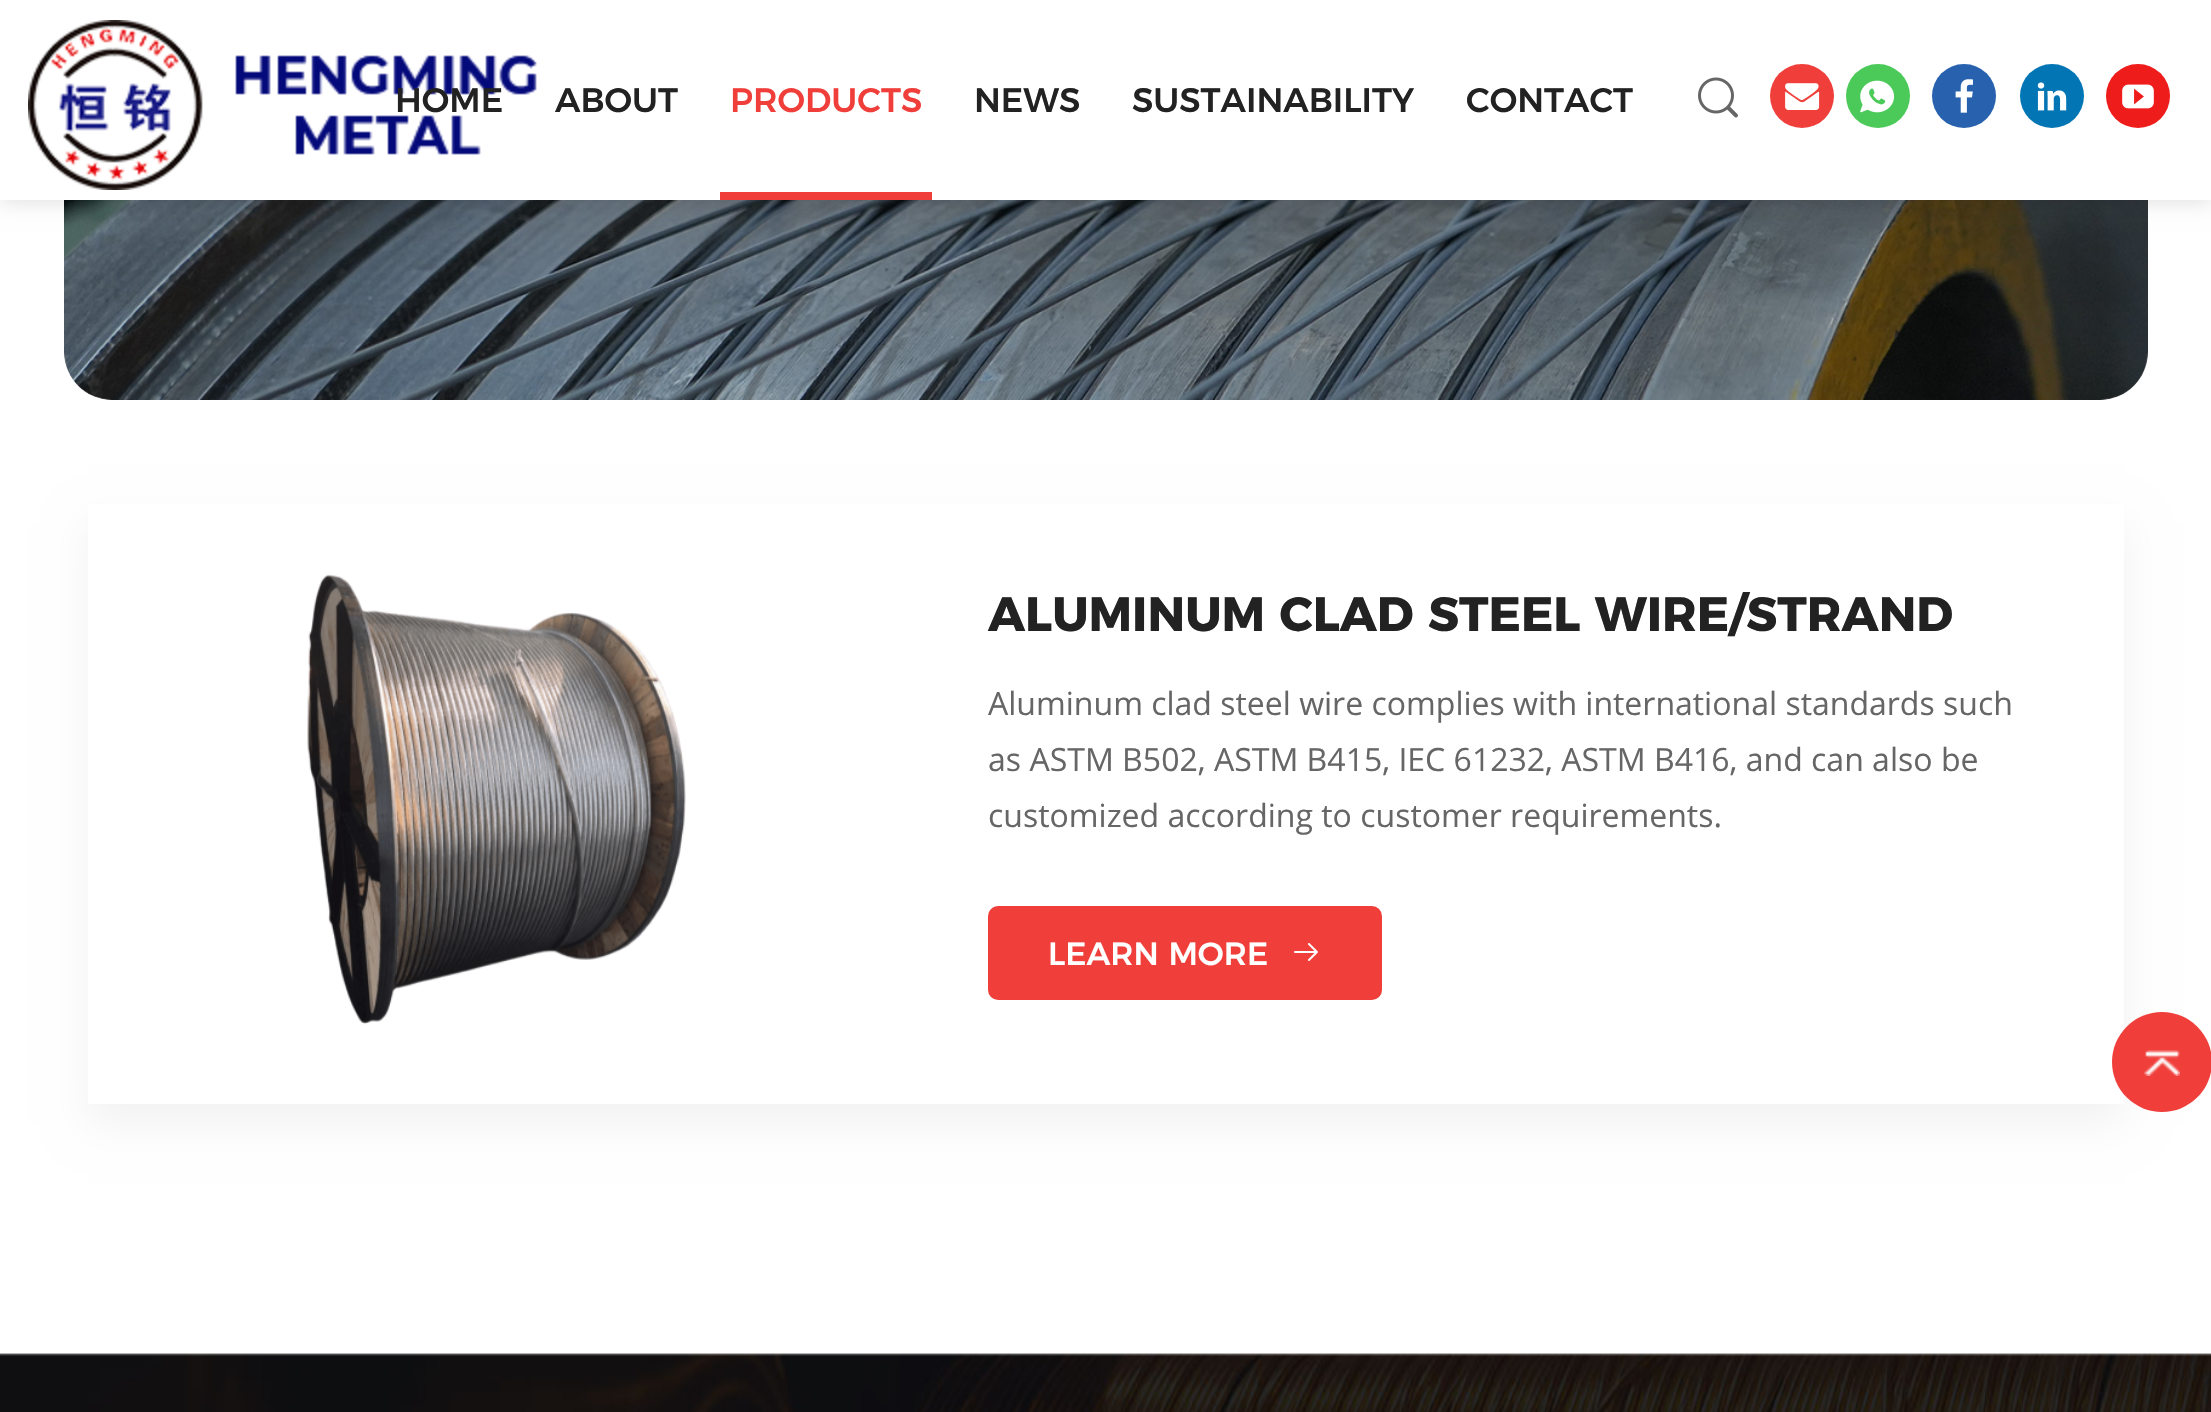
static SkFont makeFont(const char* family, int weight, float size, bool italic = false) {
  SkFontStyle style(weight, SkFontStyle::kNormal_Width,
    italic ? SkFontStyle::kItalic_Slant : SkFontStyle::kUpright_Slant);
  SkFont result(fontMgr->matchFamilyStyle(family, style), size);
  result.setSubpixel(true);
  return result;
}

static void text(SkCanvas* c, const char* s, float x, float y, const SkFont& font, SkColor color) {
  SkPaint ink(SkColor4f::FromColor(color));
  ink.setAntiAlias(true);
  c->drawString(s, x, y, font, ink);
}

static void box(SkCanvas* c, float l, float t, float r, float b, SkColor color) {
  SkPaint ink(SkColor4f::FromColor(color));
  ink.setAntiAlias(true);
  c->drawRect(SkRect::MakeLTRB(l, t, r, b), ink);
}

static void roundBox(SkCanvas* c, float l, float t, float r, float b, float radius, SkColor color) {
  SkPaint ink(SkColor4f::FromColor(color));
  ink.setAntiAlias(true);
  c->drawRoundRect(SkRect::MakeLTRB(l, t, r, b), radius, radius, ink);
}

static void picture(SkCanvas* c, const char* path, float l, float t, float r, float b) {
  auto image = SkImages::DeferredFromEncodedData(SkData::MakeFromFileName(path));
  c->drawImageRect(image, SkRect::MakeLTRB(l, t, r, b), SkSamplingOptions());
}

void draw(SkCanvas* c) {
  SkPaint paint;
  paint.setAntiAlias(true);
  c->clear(0xffffffff);
  picture(c, "img_08.png", 64, 200, 2148, 400);
  paint.setColor(0x1f000000);
  paint.setMaskFilter(SkMaskFilter::MakeBlur(kNormal_SkBlurStyle, 10));
  c->drawRect(SkRect::MakeLTRB(0, 2, 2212, 202), paint);
  paint.setMaskFilter(nullptr);
  box(c, 0, 0, 2211, 200, 0xffffffff);
  picture(c, "img_01.png", 28, 20, 537, 190);
  SkFont face1 = makeFont("Montserrat", 500, 34);
  text(c, "HOME", 395, 112, face1, 0xff222222);
  text(c, "ABOUT", 555, 112, face1, 0xff222222);
  text(c, "PRODUCTS", 730, 112, face1, 0xfff03f3b);
  box(c, 720, 192, 932, 200, 0xfff03f3b);
  text(c, "NEWS", 974, 112, face1, 0xff222222);
  text(c, "SUSTAINABILITY", 1132, 112, face1, 0xff222222);
  text(c, "CONTACT", 1466, 112, face1, 0xff222222);
  picture(c, "img_02.png", 1698, 77, 1738, 118);
  paint.setColor(0xfff03f3b);
  c->drawCircle(1802, 96, 32, paint);
  picture(c, "img_03.png", 1785, 83, 1820, 110);
  paint.setColor(0xff4bca59);
  c->drawCircle(1878, 96, 32, paint);
  picture(c, "img_04.png", 1860, 80, 1895, 113);
  paint.setColor(0xff2862ae);
  c->drawCircle(1964, 96, 32, paint);
  picture(c, "img_05.png", 1955, 79, 1973, 113);
  paint.setColor(0xff0275b4);
  c->drawCircle(2052, 96, 32, paint);
  picture(c, "img_06.png", 2037, 82, 2067, 111);
  paint.setColor(0xffee1c1b);
  c->drawCircle(2138, 96, 32, paint);
  picture(c, "img_07.png", 2122, 84, 2154, 109);
  c->save();
  c->clipPath(SkPathBuilder(SkPathFillType::kEvenOdd).moveTo(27, 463).lineTo(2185, 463).lineTo(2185, 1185).lineTo(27, 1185).close().moveTo(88, 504).lineTo(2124, 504).lineTo(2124, 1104).lineTo(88, 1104).close().detach(), true);
  paint.setColor(0x0d000000);
  paint.setMaskFilter(SkMaskFilter::MakeBlur(kNormal_SkBlurStyle, 20));
  c->drawRect(SkRect::MakeLTRB(88, 524, 2124, 1124), paint);
  paint.setMaskFilter(nullptr);
  c->restore();
  picture(c, "img_09.png", 307, 574, 686, 1025);
  SkFont face2 = makeFont("Montserrat", 700, 48);
  text(c, "ALUMINUM CLAD STEEL WIRE/STRAND", 988, 631, face2, 0xff222222);
  SkFont face3 = makeFont("Open Sans", 400, 32);
  text(c, "Aluminum clad steel wire complies with international standards such", 988, 715, face3, 0xff666666);
  text(c, "as ASTM B502, ASTM B415, IEC 61232, ASTM B416, and can also be", 988, 771, face3, 0xff666666);
  text(c, "customized according to customer requirements.", 988, 827, face3, 0xff666666);
  roundBox(c, 988, 906, 1382, 1000, 10, 0xfff03f3b);
  SkFont face4 = makeFont("Montserrat", 500, 32);
  text(c, "LEARN MORE", 1048, 965, face4, 0xffffffff);
  picture(c, "img_10.png", 1294, 943, 1318, 961);
  paint.setColor(0xfff03f3b);
  c->drawCircle(2162, 1062, 50, paint);
  picture(c, "img_11.png", 2144, 1050, 2180, 1076);
  picture(c, "img_12.png", 0, 1353, 2211, 1412);
}
